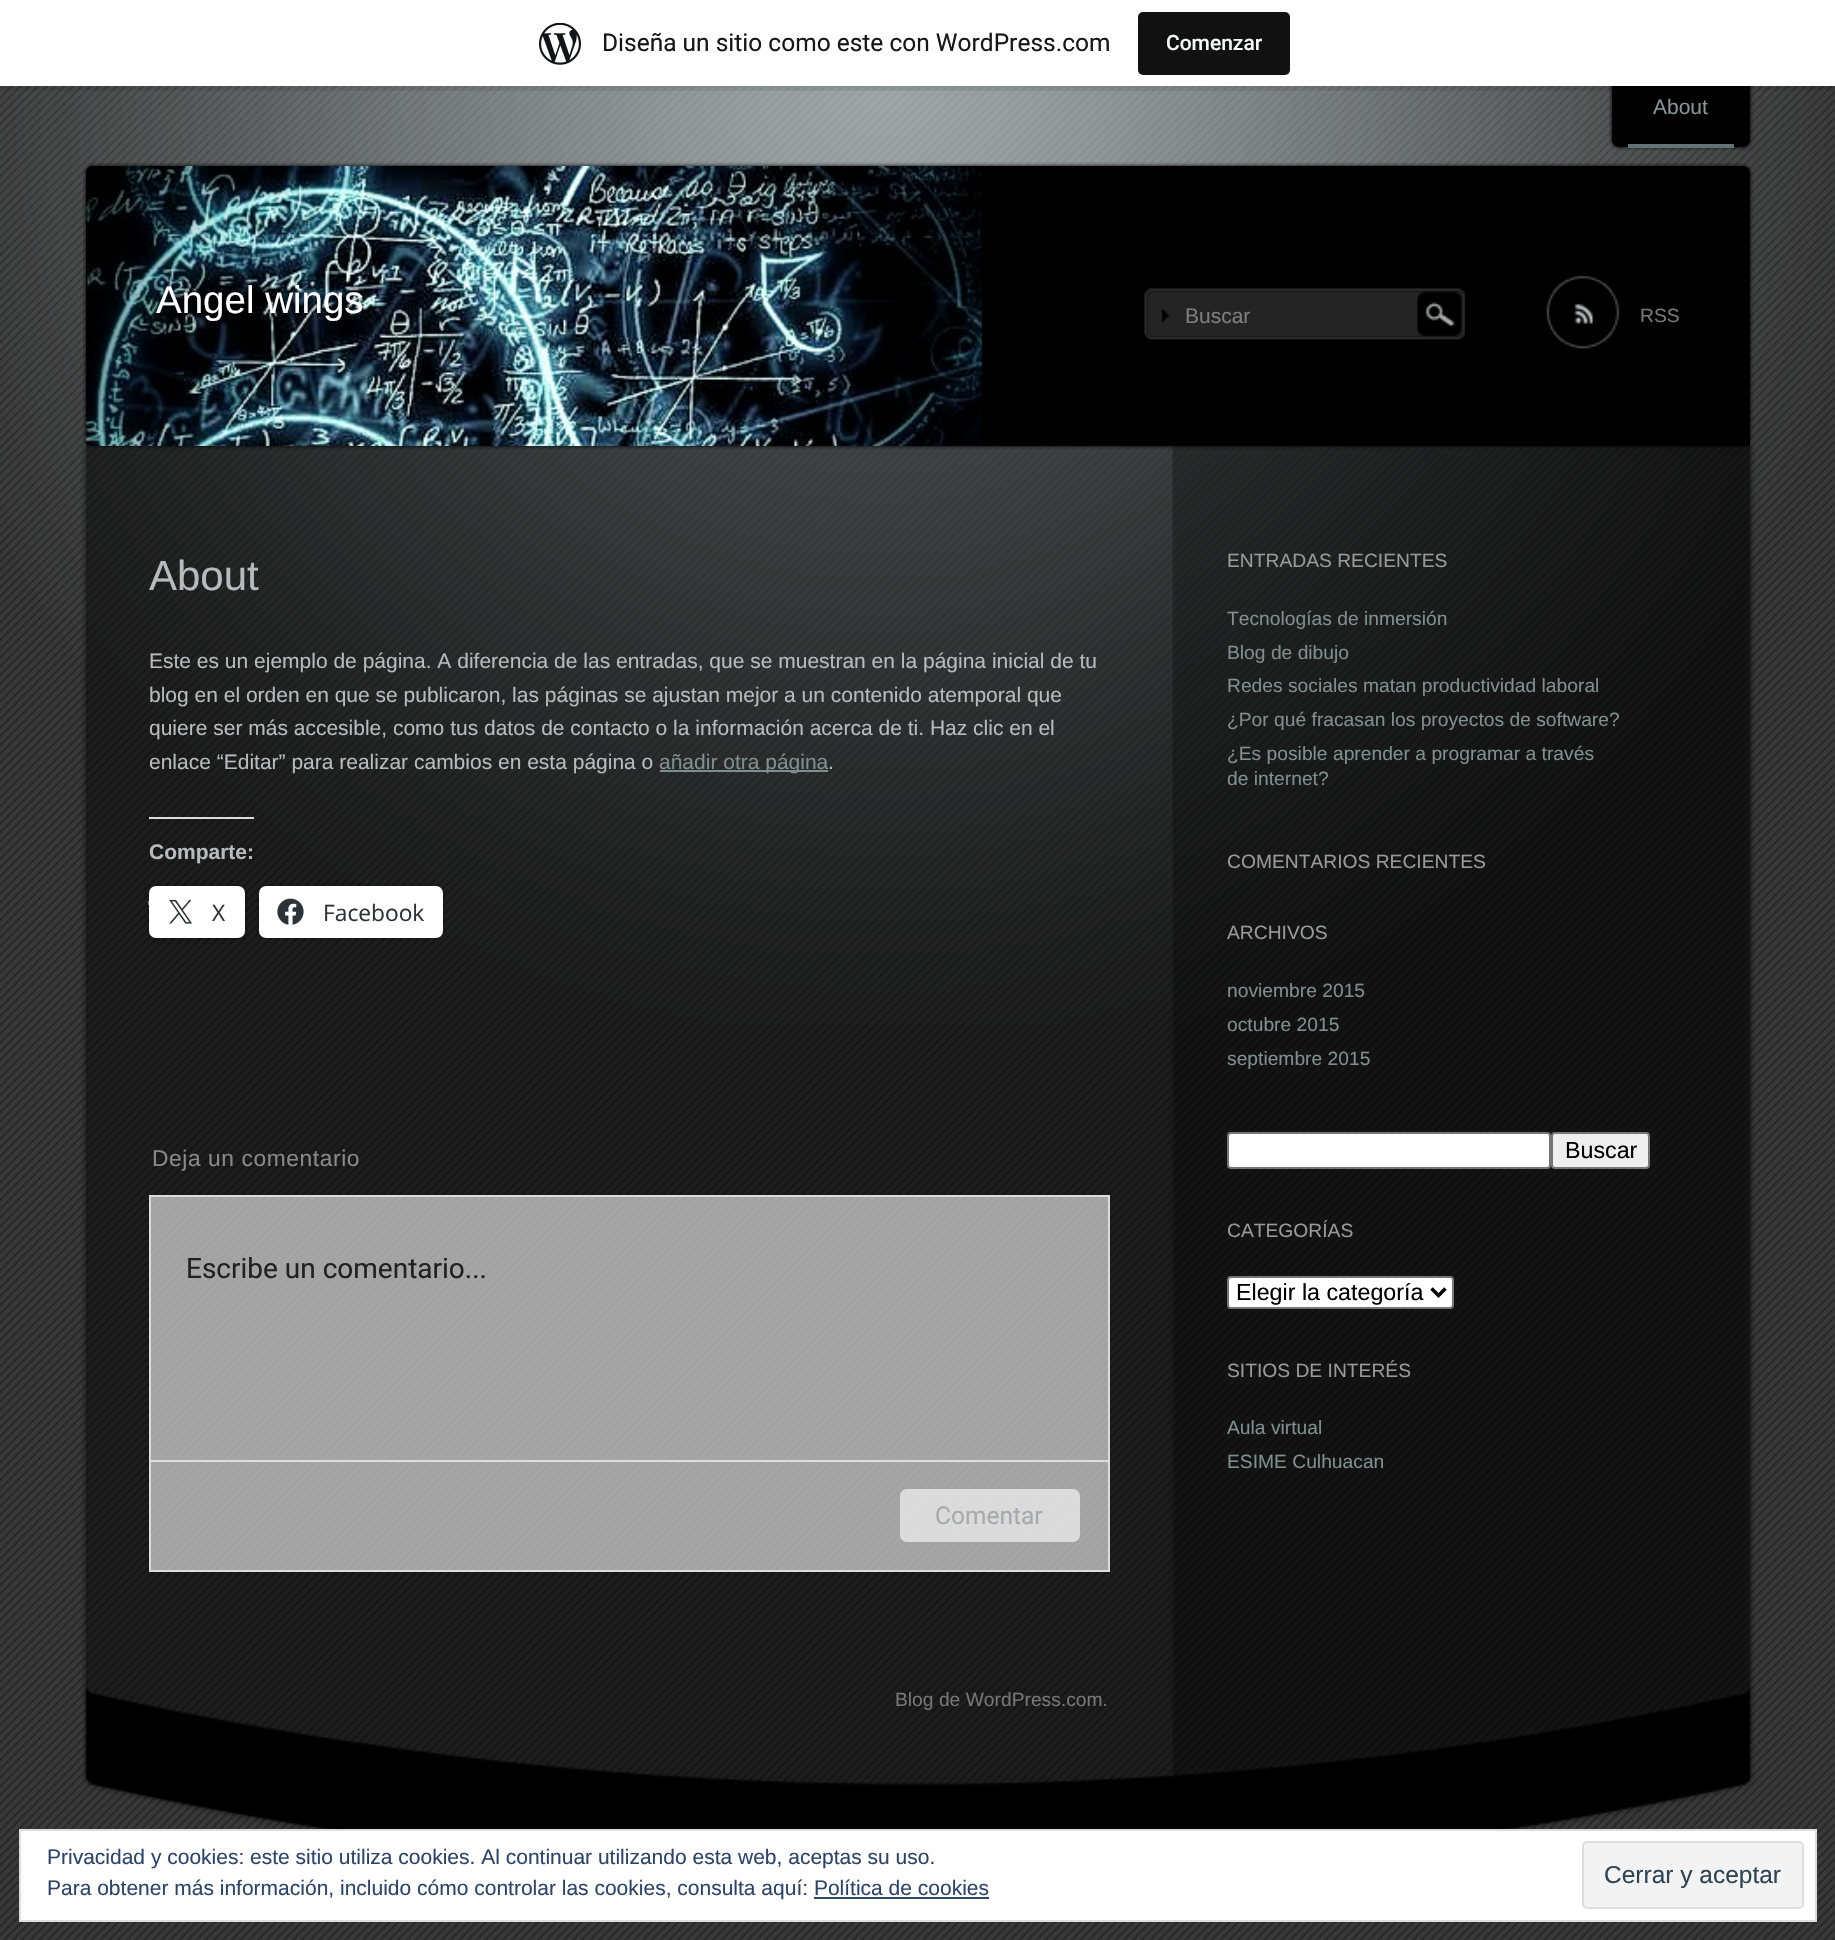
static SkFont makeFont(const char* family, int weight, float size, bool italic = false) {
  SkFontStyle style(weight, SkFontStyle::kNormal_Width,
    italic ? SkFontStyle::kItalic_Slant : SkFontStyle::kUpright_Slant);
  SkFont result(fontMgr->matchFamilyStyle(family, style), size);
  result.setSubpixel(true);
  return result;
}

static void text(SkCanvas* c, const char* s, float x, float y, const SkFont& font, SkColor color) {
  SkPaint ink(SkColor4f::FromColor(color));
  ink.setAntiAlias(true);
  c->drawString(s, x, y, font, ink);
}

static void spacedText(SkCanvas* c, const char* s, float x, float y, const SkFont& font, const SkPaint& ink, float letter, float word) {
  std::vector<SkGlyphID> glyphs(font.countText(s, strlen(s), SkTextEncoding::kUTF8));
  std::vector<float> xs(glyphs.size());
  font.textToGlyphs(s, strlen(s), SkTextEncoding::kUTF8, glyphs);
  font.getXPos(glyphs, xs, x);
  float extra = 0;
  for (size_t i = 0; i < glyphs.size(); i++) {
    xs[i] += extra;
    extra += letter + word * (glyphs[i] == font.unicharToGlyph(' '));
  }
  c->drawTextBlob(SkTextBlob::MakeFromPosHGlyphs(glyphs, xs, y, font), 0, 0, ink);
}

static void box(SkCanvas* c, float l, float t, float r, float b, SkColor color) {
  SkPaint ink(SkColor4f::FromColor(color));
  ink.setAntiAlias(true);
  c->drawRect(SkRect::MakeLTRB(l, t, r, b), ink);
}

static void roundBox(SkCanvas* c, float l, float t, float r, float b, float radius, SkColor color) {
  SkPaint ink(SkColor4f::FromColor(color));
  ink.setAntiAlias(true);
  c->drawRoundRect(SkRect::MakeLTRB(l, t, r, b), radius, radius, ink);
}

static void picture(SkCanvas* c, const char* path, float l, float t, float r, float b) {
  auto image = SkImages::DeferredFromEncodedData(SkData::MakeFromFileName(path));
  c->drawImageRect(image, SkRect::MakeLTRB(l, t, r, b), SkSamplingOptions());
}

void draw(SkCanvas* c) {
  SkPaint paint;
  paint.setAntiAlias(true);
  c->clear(0xffffffff);
  picture(c, "img_01.png", 0, 86, 1835, 1940);
  picture(c, "img_03.png", 0, 86, 1835, 1024);
  paint.setColor(0xff000000);
  paint.setMaskFilter(SkMaskFilter::MakeBlur(kNormal_SkBlurStyle, 2));
  c->drawRoundRect(SkRect::MakeLTRB(1612, 70, 1750, 147), 7, 7, paint);
  paint.setMaskFilter(nullptr);
  c->drawPath(SkPathBuilder().moveTo(1612, 70).lineTo(1750, 70).lineTo(1750, 140).cubicTo(1750, 144, 1747, 147, 1743, 147).lineTo(1619, 147).cubicTo(1615, 147, 1612, 144, 1612, 140).close().detach(), paint);
  paint.setColor(0x0d000000);
  paint.setMaskFilter(SkMaskFilter::MakeBlur(kNormal_SkBlurStyle, 2));
  c->drawRect(SkRect::MakeLTRB(0, 2, 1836, 88), paint);
  paint.setMaskFilter(nullptr);
  paint.setColor(0x14000000);
  c->drawPath(SkPathBuilder().moveTo(2, 86).lineTo(2, 91).lineTo(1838, 91).lineTo(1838, 5).lineTo(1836, 5).lineTo(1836, 86).close().detach(), paint);
  box(c, 0, 0, 1835, 86, 0xffffffff);
  picture(c, "img_02.png", 539, 23, 581, 65);
  SkFont face1 = makeFont("Roboto", 400, 24.5f);
  text(c, "Diseña un sitio como este con WordPress.com", 602, 51, face1, 0xff171717);
  roundBox(c, 1138, 12, 1290, 75, 5, 0xff111111);
  SkFont face2 = makeFont("Roboto", 500, 21);
  text(c, "Comenzar", 1166, 50, face2, 0xfff6f7f7);
  box(c, 1628, 144, 1734, 148, 0xff627376);
  SkFont face3 = makeFont("Liberation Sans", 400, 21);
  text(c, "About", 1653, 114, face3, 0xff869497);
  picture(c, "img_08.png", 81, 446, 1755, 1685);
  paint.setColor(0xff000000);
  paint.setMaskFilter(SkMaskFilter::MakeBlur(kNormal_SkBlurStyle, 2));
  c->drawRoundRect(SkRect::MakeLTRB(86, 166, 1750, 446), 7, 7, paint);
  paint.setMaskFilter(nullptr);
  c->drawPath(SkPathBuilder().moveTo(93, 166).lineTo(1743, 166).cubicTo(1747, 166, 1750, 169, 1750, 173).lineTo(1750, 446).lineTo(86, 446).lineTo(86, 173).cubicTo(86, 169, 89, 166, 93, 166).close().detach(), paint);
  picture(c, "img_04.png", 85, 166, 982, 446);
  SkFont face4 = makeFont("Liberation Sans", 400, 38.5f);
  text(c, "Angel wings", 156, 313, face4, 0xffffffff);
  picture(c, "img_05.png", 1144, 288, 1420, 340);
  text(c, "Buscar", 1185, 323, face3, 0xff7e7e7e);
  picture(c, "img_06.png", 1417, 288, 1465, 340);
  picture(c, "img_07.png", 1546, 275, 1620, 349);
  SkFont face5 = makeFont("Liberation Sans", 400, 19.25f);
  text(c, "RSS", 1640, 322, face5, 0xff777777);
  SkFont face6 = makeFont("Liberation Sans", 400, 42);
  text(c, "About", 149, 590, face6, 0xffb8babb);
  text(c, "Este es un ejemplo de página. A diferencia de las entradas, que se muestran en la página inicial de tu", 149, 668, face3, 0xffb8babb);
  text(c, "blog en el orden en que se publicaron, las páginas se ajustan mejor a un contenido atemporal que", 149, 702, face3, 0xffb8babb);
  text(c, "quiere ser más accesible, como tus datos de contacto o la información acerca de ti. Haz clic en el", 149, 735, face3, 0xffb8babb);
  text(c, "enlace “Editar” para realizar cambios en esta página o", 149, 769, face3, 0xffb8babb);
  box(c, 660, 770, 828, 772, 0xff7f8e91);
  text(c, "añadir otra página", 659, 769, face3, 0xff7f8e91);
  text(c, ".", 828, 769, face3, 0xffb8babb);
  box(c, 149, 817, 254, 819, 0xffdcdcde);
  SkFont face7 = makeFont("Liberation Sans", 700, 21);
  text(c, "Comparte:", 149, 859, face7, 0xffb8babb);
  box(c, 148, 901, 153, 905, 0xffa2a2a2);
  paint.setStyle(SkPaint::kStroke_Style);
  paint.setStrokeWidth(2);
  paint.setColor(0x1f000000);
  c->drawRoundRect(SkRect::MakeLTRB(148, 885, 246, 939), 8, 8, paint);
  paint.setStyle(SkPaint::kFill_Style);
  paint.setMaskFilter(SkMaskFilter::MakeBlur(kNormal_SkBlurStyle, 2));
  c->drawRoundRect(SkRect::MakeLTRB(149, 887, 245, 940), 7, 7, paint);
  paint.setMaskFilter(nullptr);
  roundBox(c, 149, 886, 245, 938, 7, 0xffffffff);
  picture(c, "img_09.png", 169, 899, 192, 924);
  SkFont face8 = makeFont("Open Sans", 400, 22.75f);
  text(c, "X", 212, 921, face8, 0xff2c3338);
  paint.setStyle(SkPaint::kStroke_Style);
  c->drawRoundRect(SkRect::MakeLTRB(258, 885, 444, 939), 8, 8, paint);
  roundBox(c, 259, 886, 443, 938, 7, 0xffffffff);
  picture(c, "img_10.png", 277, 898, 304, 925);
  text(c, "Facebook", 323, 921, face8, 0xff2c3338);
  SkFont face9 = makeFont("Liberation Sans", 400, 22.75f);
  paint.setStyle(SkPaint::kFill_Style);
  paint.setColor(0xff888888);
  spacedText(c, "Deja un comentario", 152, 1166, face9, paint, 0.6f, 0);
  paint.setColor(0x99ffffff);
  c->drawRect(SkRect::MakeLTRB(150, 1196, 1109, 1571), paint);
  paint.setStyle(SkPaint::kStroke_Style);
  paint.setColor(0xffdcdcde);
  c->drawRect(SkRect::MakeLTRB(150, 1196, 1109, 1571), paint);
  SkFont face10 = makeFont("Roboto", 400, 28);
  text(c, "Escribe un comentario...", 186, 1278, face10, 0xff212121);
  box(c, 151, 1460, 1108, 1462, 0xffdcdcde);
  paint.setStyle(SkPaint::kFill_Style);
  paint.setColor(0x99ffffff);
  c->drawRoundRect(SkRect::MakeLTRB(901, 1490, 1079, 1541), 6, 6, paint);
  paint.setStyle(SkPaint::kStroke_Style);
  paint.setColor(0xffdcdcde);
  c->drawRoundRect(SkRect::MakeLTRB(901, 1490, 1079, 1541), 6, 6, paint);
  text(c, "Comentar", 935, 1524, face1, 0xffa7aaad);
  text(c, "ENTRADAS RECIENTES", 1227, 567, face5, 0xff999999);
  text(c, "Tecnologías de inmersión", 1227, 625, face5, 0xff7f8e91);
  text(c, "Blog de dibujo", 1227, 659, face5, 0xff7f8e91);
  text(c, "Redes sociales matan productividad laboral", 1227, 692, face5, 0xff7f8e91);
  text(c, "¿Por qué fracasan los proyectos de software?", 1227, 726, face5, 0xff7f8e91);
  text(c, "¿Es posible aprender a programar a través", 1227, 760, face5, 0xff7f8e91);
  text(c, "de internet?", 1227, 785, face5, 0xff7f8e91);
  text(c, "COMENTARIOS RECIENTES", 1227, 868, face5, 0xff999999);
  text(c, "ARCHIVOS", 1227, 939, face5, 0xff999999);
  text(c, "noviembre 2015", 1227, 997, face5, 0xff7f8e91);
  text(c, "octubre 2015", 1227, 1031, face5, 0xff7f8e91);
  text(c, "septiembre 2015", 1227, 1065, face5, 0xff7f8e91);
  paint.setStyle(SkPaint::kFill_Style);
  paint.setColor(0xffffffff);
  c->drawRoundRect(SkRect::MakeLTRB(1228, 1133, 1550, 1168), 3, 3, paint);
  paint.setStyle(SkPaint::kStroke_Style);
  paint.setColor(0xff767676);
  c->drawRoundRect(SkRect::MakeLTRB(1228, 1133, 1550, 1168), 3, 3, paint);
  paint.setStyle(SkPaint::kFill_Style);
  paint.setColor(0xffefefef);
  c->drawRoundRect(SkRect::MakeLTRB(1552, 1133, 1649, 1168), 3, 3, paint);
  paint.setStyle(SkPaint::kStroke_Style);
  paint.setColor(0xff767676);
  c->drawRoundRect(SkRect::MakeLTRB(1552, 1133, 1649, 1168), 3, 3, paint);
  SkFont face11 = makeFont("Liberation Sans", 400, 23.25f);
  text(c, "Buscar", 1565, 1158, face11, 0xff000000);
  text(c, "CATEGORÍAS", 1227, 1237, face5, 0xff999999);
  paint.setStyle(SkPaint::kFill_Style);
  paint.setColor(0xffffffff);
  c->drawRoundRect(SkRect::MakeLTRB(1228, 1277, 1453, 1308), 3, 3, paint);
  paint.setStyle(SkPaint::kStroke_Style);
  paint.setColor(0xff767676);
  c->drawRoundRect(SkRect::MakeLTRB(1228, 1277, 1453, 1308), 3, 3, paint);
  paint.setStrokeWidth(3.5f);
  paint.setColor(0xff000000);
  c->drawPath(SkPathBuilder().moveTo(1431.5f, 1288.5f).lineTo(1438.5f, 1295.5f).lineTo(1445.5f, 1288.5f).detach(), paint);
  text(c, "Elegir la categoría", 1236, 1300, face11, 0xff000000);
  text(c, "SITIOS DE INTERÉS", 1227, 1377, face5, 0xff999999);
  text(c, "Aula virtual", 1227, 1434, face5, 0xff7f8e91);
  text(c, "ESIME Culhuacan", 1227, 1468, face5, 0xff7f8e91);
  picture(c, "img_11.png", 82, 1685, 1755, 1829);
  text(c, "Blog de WordPress.com.", 895, 1706, face5, 0xff777777);
  paint.setStyle(SkPaint::kFill_Style);
  paint.setColor(0xffffffff);
  c->drawRect(SkRect::MakeLTRB(20, 1830, 1816, 1921), paint);
  paint.setStyle(SkPaint::kStroke_Style);
  paint.setStrokeWidth(2);
  paint.setColor(0xffdedede);
  c->drawRect(SkRect::MakeLTRB(20, 1830, 1816, 1921), paint);
  text(c, "Privacidad y cookies: este sitio utiliza cookies. Al continuar utilizando esta web, aceptas su uso.", 47, 1864, face3, 0xff2e4467);
  text(c, "Para obtener más información, incluido cómo controlar las cookies, consulta aquí: Política de cookies", 47, 1895, face3, 0xff2e4467);
  paint.setStyle(SkPaint::kFill_Style);
  paint.setColor(0xfff3f3f3);
  c->drawRoundRect(SkRect::MakeLTRB(1583, 1842, 1803, 1908), 4, 4, paint);
  paint.setStyle(SkPaint::kStroke_Style);
  paint.setColor(0xffdedede);
  c->drawRoundRect(SkRect::MakeLTRB(1583, 1842, 1803, 1908), 4, 4, paint);
  SkFont face12 = makeFont("Liberation Sans", 400, 24.5f);
  text(c, "Cerrar y aceptar", 1604, 1883, face12, 0xff2e4453);
  box(c, 814, 1897, 989, 1899, 0xff2e4467);
}
